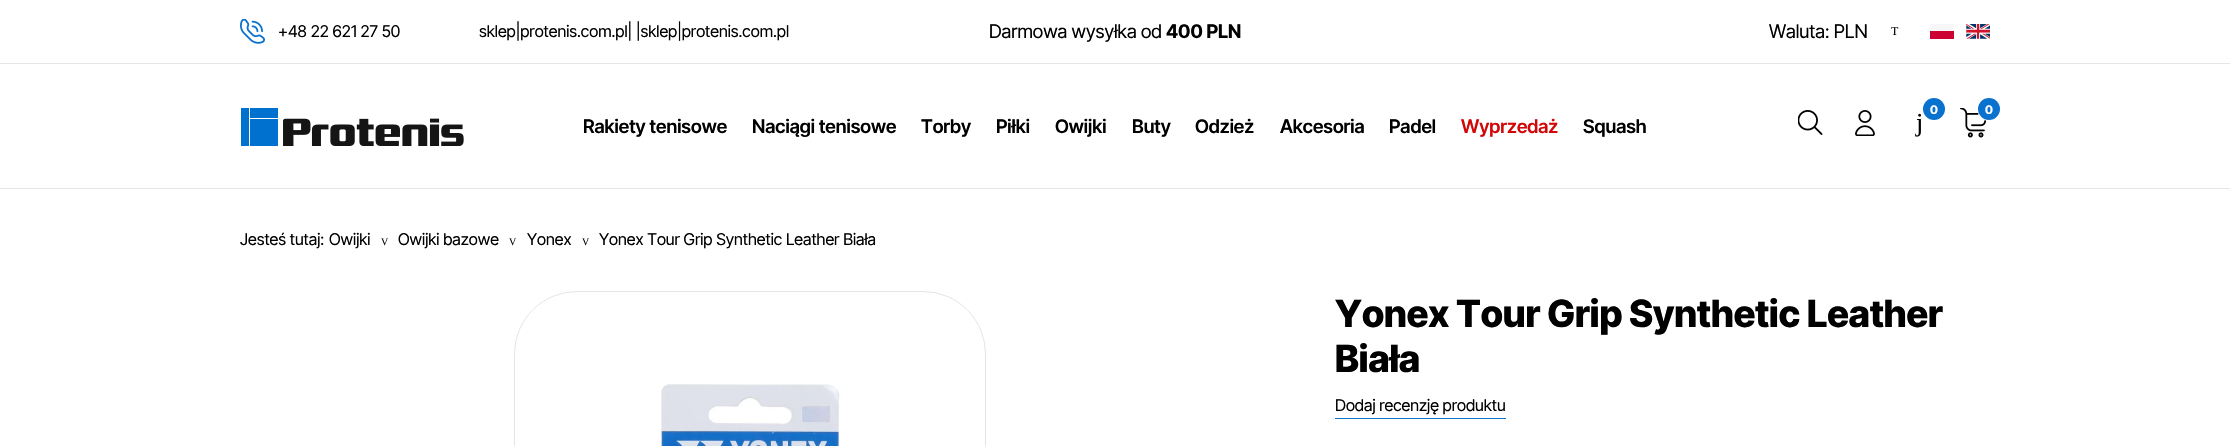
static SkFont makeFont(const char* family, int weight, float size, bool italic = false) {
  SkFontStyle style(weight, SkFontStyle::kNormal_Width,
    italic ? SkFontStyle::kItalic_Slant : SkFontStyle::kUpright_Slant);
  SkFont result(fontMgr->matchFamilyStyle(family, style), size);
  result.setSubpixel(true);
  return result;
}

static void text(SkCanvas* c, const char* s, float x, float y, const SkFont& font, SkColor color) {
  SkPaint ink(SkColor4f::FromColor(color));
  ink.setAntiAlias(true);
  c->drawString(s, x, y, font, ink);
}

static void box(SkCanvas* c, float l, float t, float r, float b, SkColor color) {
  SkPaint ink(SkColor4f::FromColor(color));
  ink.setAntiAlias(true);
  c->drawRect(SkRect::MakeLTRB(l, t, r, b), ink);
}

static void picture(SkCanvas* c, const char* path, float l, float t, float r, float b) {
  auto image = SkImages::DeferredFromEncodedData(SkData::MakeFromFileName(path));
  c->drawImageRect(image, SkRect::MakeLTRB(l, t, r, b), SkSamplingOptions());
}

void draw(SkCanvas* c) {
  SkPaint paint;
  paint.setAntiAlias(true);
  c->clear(0xffffffff);
  box(c, 0, 63, 2230, 64, 0xffe5e5e5);
  picture(c, "img_01.png", 240, 19, 265, 44);
  SkFont face1 = makeFont("Inter Tight", 400, 16.25f);
  text(c, "+48 22 621 27 50", 278, 37, face1, 0xff000000);
  text(c, "sklep|protenis.com.pl| |sklep|protenis.com.pl", 479, 37, face1, 0xff000000);
  SkFont face2 = makeFont("Inter Tight", 400, 18.75f);
  text(c, "Darmowa wysyłka od", 989, 38, face2, 0xff000000);
  SkFont face3 = makeFont("Inter Tight", 700, 18.75f);
  text(c, "400 PLN", 1166, 38, face3, 0xff000000);
  text(c, "Waluta: PLN", 1769, 38, face2, 0xff000000);
  SkFont face4 = makeFont("Liberation Serif", 400, 12);
  text(c, "T", 1891, 35, face4, 0xff000000);
  box(c, 1930, 31, 1954, 39, 0xffcc0033);
  box(c, 1930, 24, 1954, 31, 0xfff7f7f7);
  picture(c, "img_02.png", 1966, 24, 1990, 39);
  picture(c, "img_03.png", 241, 108, 464, 146);
  SkFont face5 = makeFont("Inter Tight", 600, 18.75f);
  text(c, "Rakiety tenisowe", 583, 133, face5, 0xff000000);
  text(c, "Naciągi tenisowe", 752, 133, face5, 0xff000000);
  text(c, "Torby", 921, 133, face5, 0xff000000);
  text(c, "Piłki", 996, 133, face5, 0xff000000);
  text(c, "Owijki", 1055, 133, face5, 0xff000000);
  text(c, "Buty", 1132, 133, face5, 0xff000000);
  text(c, "Odzież", 1195, 133, face5, 0xff000000);
  text(c, "Akcesoria", 1280, 133, face5, 0xff000000);
  text(c, "Padel", 1389, 133, face5, 0xff000000);
  text(c, "Wyprzedaż", 1461, 133, face5, 0xffd20707);
  text(c, "Squash", 1583, 133, face5, 0xff000000);
  picture(c, "img_04.png", 1798, 110, 1823, 135);
  picture(c, "img_05.png", 1855, 110, 1875, 136);
  paint.setColor(0xff0971ce);
  c->drawCircle(1934, 109, 11, paint);
  SkFont face6 = makeFont("Inter Tight", 700, 12);
  text(c, "0", 1930, 114, face6, 0xffffffff);
  SkFont face7 = makeFont("Liberation Serif", 400, 26);
  text(c, "j", 1916, 131, face7, 0xff000000);
  picture(c, "img_06.png", 1960, 108, 1986, 138);
  c->drawCircle(1989, 109, 11, paint);
  text(c, "0", 1985, 114, face6, 0xffffffff);
  box(c, 0, 188, 2230, 189, 0xffe5e5e5);
  text(c, "Jesteś tutaj:", 240, 245, face1, 0xff000000);
  text(c, "Owijki", 329, 245, face1, 0xff000000);
  SkFont face8 = makeFont("Liberation Serif", 400, 10);
  text(c, "V", 381, 245, face8, 0xff000000);
  text(c, "Owijki bazowe", 398, 245, face1, 0xff000000);
  text(c, "V", 509, 245, face8, 0xff000000);
  text(c, "Yonex", 527, 245, face1, 0xff000000);
  text(c, "V", 582, 245, face8, 0xff000000);
  text(c, "Yonex Tour Grip Synthetic Leather Biała", 599, 245, face1, 0xff000000);
  paint.setStyle(SkPaint::kStroke_Style);
  paint.setStrokeWidth(1);
  paint.setColor(0xffe5e5e5);
  c->drawRoundRect(SkRect::MakeLTRB(514.5f, 291.5f, 985.5f, 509.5f), 62.5f, 62.5f, paint);
  picture(c, "img_07.png", 660, 384, 842, 446);
  SkFont face9 = makeFont("Inter Tight", 800, 37.5f);
  text(c, "Yonex Tour Grip Synthetic Leather", 1335, 327, face9, 0xff000000);
  text(c, "Biała", 1335, 372, face9, 0xff000000);
  box(c, 1335, 418, 1506, 419, 0xff0971ce);
  text(c, "Dodaj recenzję produktu", 1335, 411, face1, 0xff000000);
}
